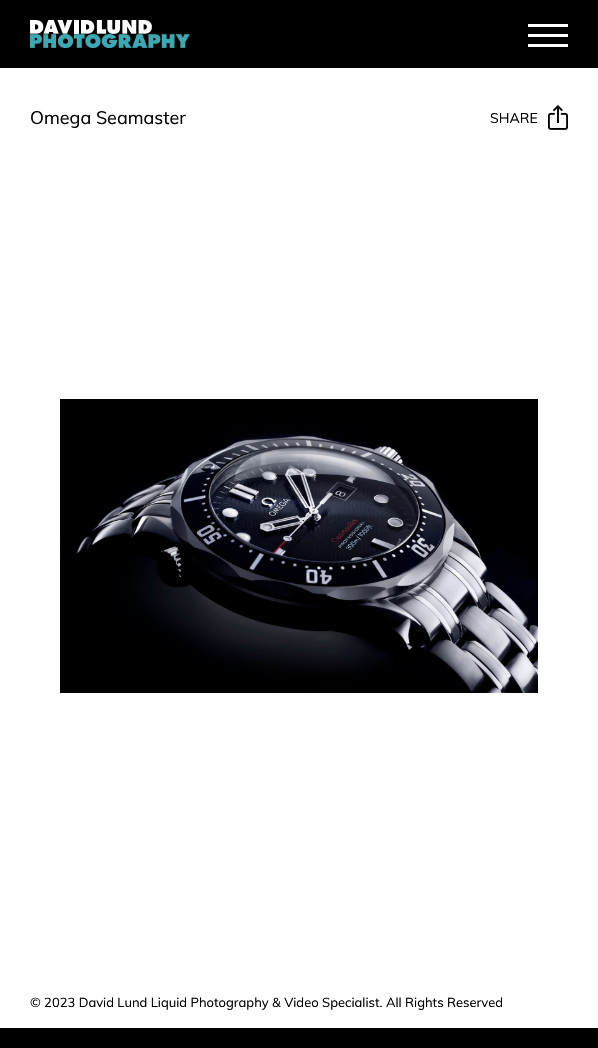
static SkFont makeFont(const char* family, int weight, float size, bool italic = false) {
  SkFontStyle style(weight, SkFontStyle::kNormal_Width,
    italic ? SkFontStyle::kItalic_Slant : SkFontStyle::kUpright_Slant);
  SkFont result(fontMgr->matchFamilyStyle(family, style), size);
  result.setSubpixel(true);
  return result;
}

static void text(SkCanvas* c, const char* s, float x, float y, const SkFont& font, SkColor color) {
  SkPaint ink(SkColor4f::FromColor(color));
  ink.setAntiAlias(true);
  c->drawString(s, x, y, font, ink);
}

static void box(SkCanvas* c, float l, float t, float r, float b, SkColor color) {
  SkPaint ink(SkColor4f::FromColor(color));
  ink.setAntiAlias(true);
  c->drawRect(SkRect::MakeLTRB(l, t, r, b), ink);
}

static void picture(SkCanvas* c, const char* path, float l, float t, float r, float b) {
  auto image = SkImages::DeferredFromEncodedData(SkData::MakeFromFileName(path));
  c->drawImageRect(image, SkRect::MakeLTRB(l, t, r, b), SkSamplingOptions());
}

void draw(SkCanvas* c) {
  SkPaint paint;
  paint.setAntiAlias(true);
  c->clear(0xffffffff);
  box(c, 0, 0, 598, 68, 0xff000000);
  picture(c, "img_01.png", 30, 20, 190, 48);
  box(c, 528, 34, 568, 37, 0xffffffff);
  box(c, 528, 24, 568, 27, 0xffffffff);
  box(c, 528, 44, 568, 47, 0xffffffff);
  SkFont face1 = makeFont("Muli", 400, 18);
  text(c, "Omega Seamaster", 30, 124, face1, 0xff000000);
  SkFont face2 = makeFont("Muli", 400, 14);
  text(c, "SHARE", 490, 123, face2, 0xff000000);
  picture(c, "img_02.png", 548, 105, 568, 130);
  picture(c, "img_03.png", 60, 399, 538, 693);
  SkFont face3 = makeFont("Muli", 400, 13);
  text(c, "© 2023 David Lund Liquid Photography & Video Specialist. All Rights Reserved", 30, 1007, face3, 0xff000000);
  box(c, 0, 1028, 598, 1048, 0xff000000);
}
